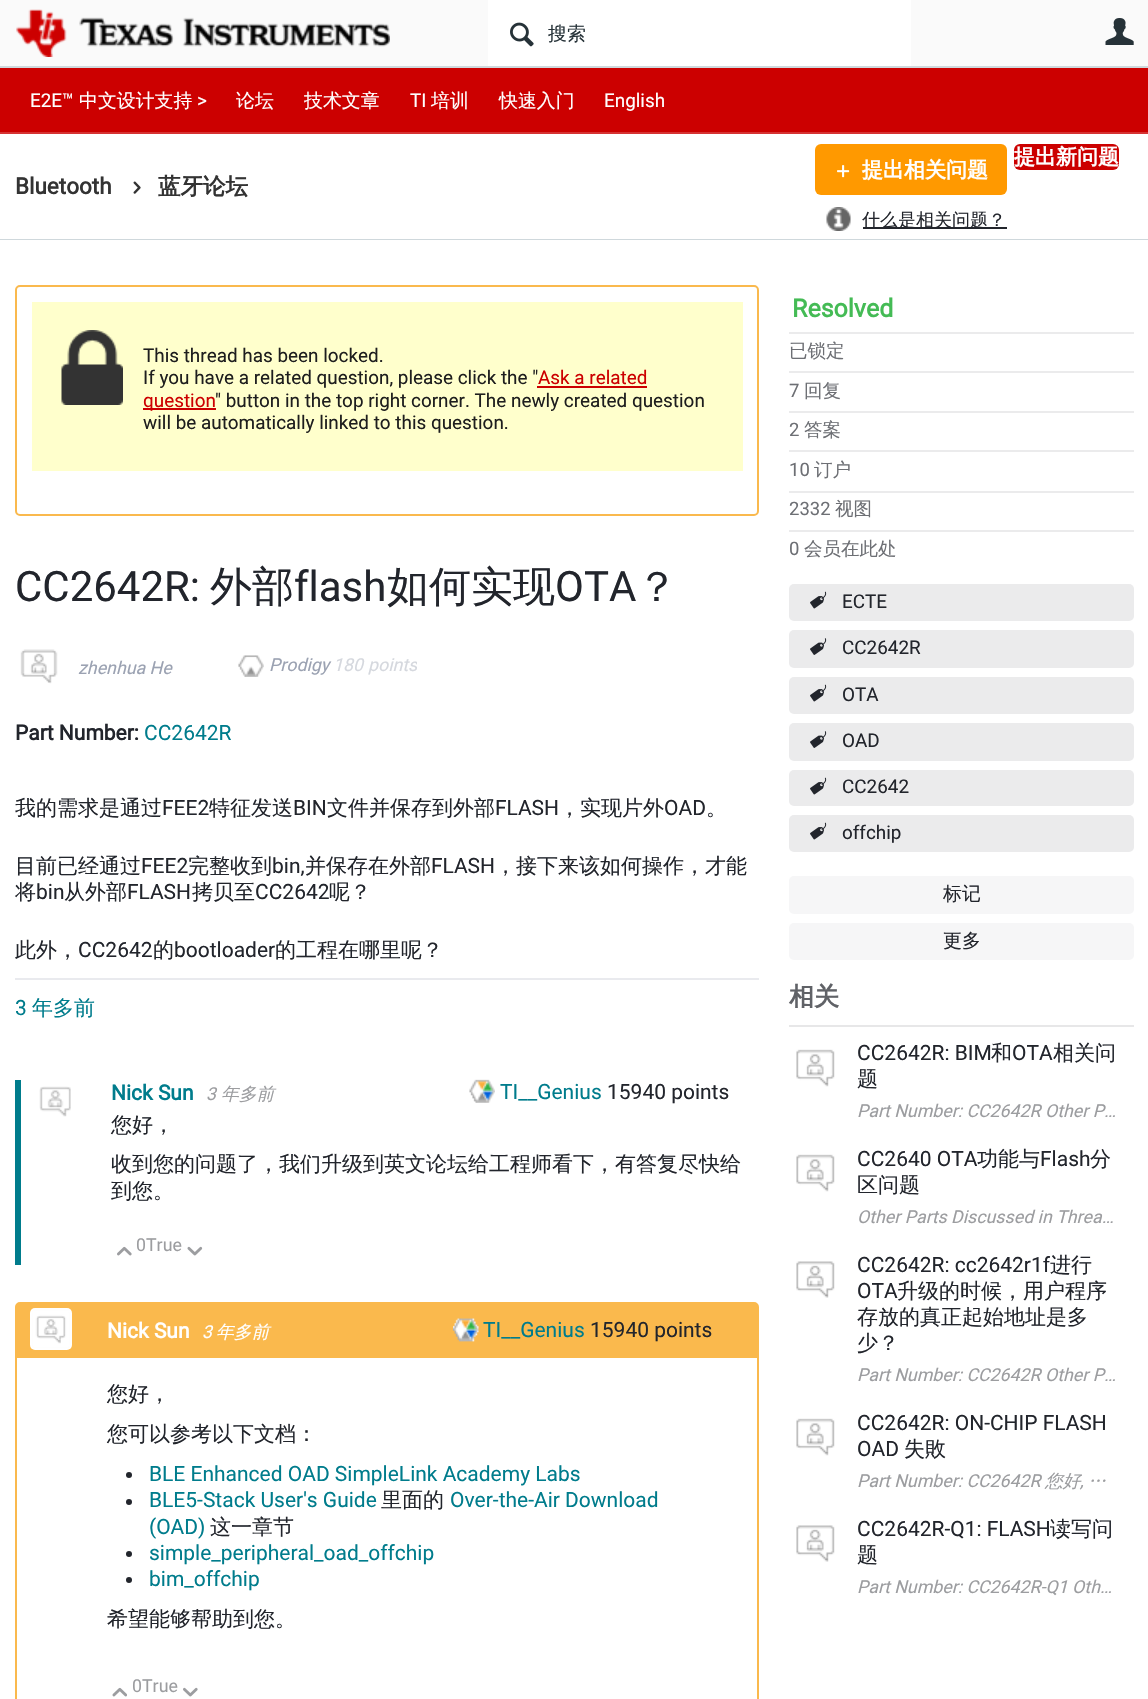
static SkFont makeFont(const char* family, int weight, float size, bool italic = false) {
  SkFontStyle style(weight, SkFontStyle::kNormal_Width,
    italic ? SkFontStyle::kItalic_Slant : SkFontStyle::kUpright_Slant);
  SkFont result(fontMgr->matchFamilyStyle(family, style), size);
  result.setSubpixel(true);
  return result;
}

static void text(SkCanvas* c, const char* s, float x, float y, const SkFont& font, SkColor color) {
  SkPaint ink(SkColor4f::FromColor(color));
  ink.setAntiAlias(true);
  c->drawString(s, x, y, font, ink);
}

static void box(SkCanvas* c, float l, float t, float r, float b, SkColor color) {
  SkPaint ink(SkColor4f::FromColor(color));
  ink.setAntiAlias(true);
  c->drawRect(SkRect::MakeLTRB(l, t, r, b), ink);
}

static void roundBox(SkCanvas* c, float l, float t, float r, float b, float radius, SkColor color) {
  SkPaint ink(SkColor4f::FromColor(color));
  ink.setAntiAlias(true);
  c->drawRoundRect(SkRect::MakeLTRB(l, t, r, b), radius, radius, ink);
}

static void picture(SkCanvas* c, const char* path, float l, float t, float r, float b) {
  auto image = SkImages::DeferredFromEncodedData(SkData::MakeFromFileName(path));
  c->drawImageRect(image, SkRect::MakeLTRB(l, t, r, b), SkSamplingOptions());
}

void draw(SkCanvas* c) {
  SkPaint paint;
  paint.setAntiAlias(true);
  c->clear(0xffffffff);
  box(c, 0, 0, 1148, 66, 0xfffafafa);
  box(c, 0, 66, 1148, 68, 0xffcfd8dc);
  picture(c, "img_01.png", 16, 9, 390, 57);
  box(c, 488, 0, 911, 66, 0xffffffff);
  picture(c, "img_02.png", 510, 22, 534, 47);
  SkFont face1 = makeFont("WenQuanYi Zen Hei", 500, 18.9f);
  text(c, "搜索", 548, 40, face1, 0xff263238);
  picture(c, "img_03.png", 1105, 18, 1134, 45);
  box(c, 0, 239, 1148, 240, 0xffcfd8dc);
  box(c, 0, 68, 1148, 132, 0xffcc0000);
  box(c, 0, 132, 1148, 134, 0xffd63333);
  SkFont face2 = makeFont("Roboto", 400, 18.9f);
  text(c, "E2E™", 30, 107, face2, 0xffffffff);
  text(c, "中文设计支持", 79, 107, face1, 0xffffffff);
  text(c, ">", 197, 107, face2, 0xffffffff);
  text(c, "论坛", 236, 107, face1, 0xffffffff);
  text(c, "技术文章", 304, 107, face1, 0xffffffff);
  text(c, "TI", 410, 107, face2, 0xffffffff);
  text(c, "培训", 431, 107, face1, 0xffffffff);
  text(c, "快速入门", 499, 107, face1, 0xffffffff);
  text(c, "English", 604, 107, face2, 0xffffffff);
  SkFont face3 = makeFont("Roboto", 700, 22.5f);
  text(c, "Bluetooth", 15, 194, face3, 0xff333333);
  picture(c, "img_04.png", 133, 181, 141, 194);
  SkFont face4 = makeFont("WenQuanYi Zen Hei", 700, 22.5f);
  text(c, "蓝牙论坛", 158, 194, face4, 0xff333333);
  roundBox(c, 815, 144, 1007, 195, 6, 0xffff9900);
  picture(c, "img_05.png", 837, 165, 850, 178);
  SkFont face5 = makeFont("WenQuanYi Zen Hei", 700, 21);
  text(c, "提出相关问题", 862, 177, face5, 0xffffffff);
  picture(c, "img_06.png", 826, 207, 851, 231);
  box(c, 863, 227, 1007, 229, 0xff22252c);
  SkFont face6 = makeFont("WenQuanYi Zen Hei", 500, 18);
  text(c, "什么是相关问题？", 862, 226, face6, 0xff22252c);
  roundBox(c, 1014, 144, 1119, 170, 6, 0xffcc0000);
  text(c, "提出新问题", 1014, 164, face5, 0xffffffff);
  paint.setStyle(SkPaint::kStroke_Style);
  paint.setStrokeWidth(2);
  paint.setColor(0xfffab94d);
  c->drawRoundRect(SkRect::MakeLTRB(16, 286, 758, 515), 4, 4, paint);
  box(c, 32, 302, 743, 471, 0xffffffcc);
  picture(c, "img_07.png", 61, 330, 123, 405);
  text(c, "This thread has been locked.", 143, 362, face2, 0xff1e1e1e);
  text(c, "If you have a related question, please click the \"", 143, 384, face2, 0xff1e1e1e);
  text(c, "Ask a related", 538, 384, face2, 0xffcc0000);
  box(c, 537, 386, 647, 388, 0xffcc0000);
  box(c, 143, 408, 216, 410, 0xffcc0000);
  text(c, "question", 143, 407, face2, 0xffcc0000);
  text(c, "\" button in the top right corner. The newly created question", 215, 407, face2, 0xff1e1e1e);
  text(c, "will be automatically linked to this question.", 143, 429, face2, 0xff1e1e1e);
  SkFont face7 = makeFont("Roboto", 400, 42);
  text(c, "CC2642R:", 15, 601, face7, 0xff22252c);
  SkFont face8 = makeFont("WenQuanYi Zen Hei", 500, 42);
  text(c, "外部", 210, 601, face8, 0xff22252c);
  text(c, "flash", 294, 601, face7, 0xff22252c);
  text(c, "如何实现", 387, 601, face8, 0xff22252c);
  text(c, "OTA", 555, 601, face7, 0xff22252c);
  text(c, "？", 636, 601, face8, 0xff22252c);
  picture(c, "img_08.png", 20, 649, 58, 684);
  SkFont face9 = makeFont("Roboto", 400, 17.8f, true);
  text(c, "zhenhua He", 78, 674, face9, 0xff9ba2b2);
  picture(c, "img_09.png", 238, 655, 264, 677);
  text(c, "Prodigy", 269, 671, face9, 0xff9ba2b2);
  text(c, "180", 333, 671, face9, 0xffd5d8de);
  c->save();
  c->clipRect(SkRect::MakeLTRB(15, 642, 417, 690));
  text(c, "points", 368, 671, face9, 0xffd5d8de);
  c->restore();
  box(c, 15, 978, 759, 980, 0xffe9eaee);
  SkFont face10 = makeFont("Roboto", 700, 21);
  text(c, "Part Number:", 15, 740, face10, 0xff22252c);
  SkFont face11 = makeFont("Roboto", 400, 21);
  text(c, "CC2642R", 144, 740, face11, 0xff007c8c);
  SkFont face12 = makeFont("WenQuanYi Zen Hei", 500, 21);
  text(c, "我的需求是通过", 15, 815, face12, 0xff22252c);
  text(c, "FEE2", 162, 815, face11, 0xff22252c);
  text(c, "特征发送", 209, 815, face12, 0xff22252c);
  text(c, "BIN", 293, 815, face11, 0xff22252c);
  text(c, "文件并保存到外部", 327, 815, face12, 0xff22252c);
  text(c, "FLASH", 495, 815, face11, 0xff22252c);
  text(c, "，实现片外", 559, 815, face12, 0xff22252c);
  text(c, "OAD", 664, 815, face11, 0xff22252c);
  text(c, "。", 706, 815, face12, 0xff22252c);
  text(c, "目前已经通过", 15, 873, face12, 0xff22252c);
  text(c, "FEE2", 141, 873, face11, 0xff22252c);
  text(c, "完整收到", 188, 873, face12, 0xff22252c);
  text(c, "bin,", 272, 873, face11, 0xff22252c);
  text(c, "并保存在外部", 305, 873, face12, 0xff22252c);
  text(c, "FLASH", 431, 873, face11, 0xff22252c);
  text(c, "，接下来该如何操作，才能", 495, 873, face12, 0xff22252c);
  text(c, "将", 15, 899, face12, 0xff22252c);
  text(c, "bin", 36, 899, face11, 0xff22252c);
  text(c, "从外部", 64, 899, face12, 0xff22252c);
  text(c, "FLASH", 127, 899, face11, 0xff22252c);
  text(c, "拷贝至", 192, 899, face12, 0xff22252c);
  text(c, "CC2642", 255, 899, face11, 0xff22252c);
  text(c, "呢？", 329, 899, face12, 0xff22252c);
  text(c, "此外，", 15, 957, face12, 0xff22252c);
  text(c, "CC2642", 78, 957, face11, 0xff22252c);
  text(c, "的", 153, 957, face12, 0xff22252c);
  text(c, "bootloader", 174, 957, face11, 0xff22252c);
  text(c, "的工程在哪里呢？", 275, 957, face12, 0xff22252c);
  text(c, "3", 15, 1015, face11, 0xff007c8c);
  text(c, "年多前", 32, 1015, face12, 0xff007c8c);
  box(c, 15, 1080, 21, 1265, 0xff007c8c);
  picture(c, "img_10.png", 39, 1086, 71, 1117);
  text(c, "Nick Sun", 111, 1100, face10, 0xff007c8c);
  text(c, "3", 206, 1100, face9, 0xff9c9da0);
  SkFont face13 = makeFont("WenQuanYi Zen Hei", 500, 17.8f, true);
  text(c, "年多前", 221, 1100, face13, 0xff9c9da0);
  picture(c, "img_11.png", 469, 1079, 495, 1103);
  text(c, "TI__Genius", 500, 1099, face11, 0xff007c8c);
  text(c, "15940 points", 607, 1099, face11, 0xff22252c);
  text(c, "您好，", 111, 1132, face12, 0xff22252c);
  text(c, "收到您的问题了，我们升级到英文论坛给工程师看下，有答复尽快给", 111, 1171, face12, 0xff22252c);
  text(c, "到您。", 111, 1198, face12, 0xff22252c);
  picture(c, "img_12.png", 117, 1246, 132, 1256);
  SkFont face14 = makeFont("Roboto", 400, 17.8f);
  text(c, "0True", 136, 1251, face14, 0xff9c9da0);
  picture(c, "img_13.png", 187, 1246, 203, 1256);
  c->drawRoundRect(SkRect::MakeLTRB(16, 1303, 758, 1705), 4, 4, paint);
  box(c, 17, 1304, 757, 1358, 0xfffab94d);
  picture(c, "img_14.png", 31, 1309, 71, 1349);
  paint.setColor(0xffffffff);
  c->drawRoundRect(SkRect::MakeLTRB(31, 1309, 71, 1349), 4, 4, paint);
  text(c, "Nick Sun", 107, 1338, face10, 0xffffffff);
  text(c, "3", 202, 1338, face9, 0xffffffff);
  text(c, "年多前", 216, 1338, face13, 0xffffffff);
  picture(c, "img_15.png", 453, 1318, 479, 1342);
  text(c, "TI__Genius", 483, 1337, face11, 0xff007c8c);
  text(c, "15940 points", 590, 1337, face11, 0xff22252c);
  text(c, "您好，", 107, 1401, face12, 0xff22252c);
  text(c, "您可以参考以下文档：", 107, 1441, face12, 0xff22252c);
  paint.setStyle(SkPaint::kFill_Style);
  paint.setColor(0xff22252c);
  c->drawCircle(129, 1475, 3, paint);
  text(c, "BLE Enhanced OAD SimpleLink Academy Labs", 149, 1481, face11, 0xff007c8c);
  c->drawCircle(129, 1502, 3, paint);
  text(c, "BLE5-Stack User's Guide", 149, 1507, face11, 0xff007c8c);
  text(c, "里面的", 381, 1507, face12, 0xff22252c);
  text(c, "Over-the-Air Download", 450, 1507, face11, 0xff007c8c);
  text(c, "(OAD)", 149, 1534, face11, 0xff007c8c);
  text(c, "这一章节", 210, 1534, face12, 0xff22252c);
  c->drawCircle(129, 1554, 3, paint);
  text(c, "simple_peripheral_oad_offchip", 149, 1560, face11, 0xff007c8c);
  c->drawCircle(129, 1580, 3, paint);
  text(c, "bim_offchip", 149, 1586, face11, 0xff007c8c);
  text(c, "希望能够帮助到您。", 107, 1626, face12, 0xff22252c);
  picture(c, "img_16.png", 112, 1687, 127, 1697);
  text(c, "0True", 132, 1692, face14, 0xff9c9da0);
  picture(c, "img_17.png", 183, 1687, 198, 1697);
  box(c, 789, 332, 1134, 334, 0xffebebec);
  SkFont face15 = makeFont("Roboto", 700, 25);
  text(c, "Resolved", 792, 317, face15, 0xff44bb55);
  box(c, 789, 371, 1134, 373, 0xffebebec);
  SkFont face16 = makeFont("WenQuanYi Zen Hei", 500, 18.5f);
  text(c, "已锁定", 789, 357, face16, 0xff6d6f74);
  box(c, 789, 411, 1134, 413, 0xffebebec);
  SkFont face17 = makeFont("Roboto", 400, 18.5f);
  text(c, "7", 789, 397, face17, 0xff6d6f74);
  text(c, "回复", 804, 397, face16, 0xff6d6f74);
  box(c, 789, 450, 1134, 452, 0xffebebec);
  text(c, "2", 789, 436, face17, 0xff6d6f74);
  text(c, "答案", 804, 436, face16, 0xff6d6f74);
  box(c, 789, 491, 1134, 493, 0xffebebec);
  text(c, "10", 789, 476, face17, 0xff6d6f74);
  text(c, "订户", 814, 476, face16, 0xff6d6f74);
  box(c, 789, 530, 1134, 532, 0xffebebec);
  text(c, "2332", 789, 515, face17, 0xff6d6f74);
  text(c, "视图", 835, 515, face16, 0xff6d6f74);
  text(c, "0", 789, 555, face17, 0xff6d6f74);
  text(c, "会员在此处", 804, 555, face16, 0xff6d6f74);
  roundBox(c, 789, 584, 1134, 621, 5, 0xffebebec);
  picture(c, "img_18.png", 810, 591, 827, 609);
  text(c, "ECTE", 842, 608, face2, 0xff22252c);
  roundBox(c, 789, 630, 1134, 668, 5, 0xffebebec);
  picture(c, "img_19.png", 810, 638, 827, 655);
  text(c, "CC2642R", 842, 654, face2, 0xff22252c);
  roundBox(c, 789, 677, 1134, 714, 5, 0xffebebec);
  picture(c, "img_18.png", 810, 684, 827, 702);
  text(c, "OTA", 842, 701, face2, 0xff22252c);
  roundBox(c, 789, 723, 1134, 761, 5, 0xffebebec);
  picture(c, "img_19.png", 810, 731, 827, 748);
  text(c, "OAD", 842, 747, face2, 0xff22252c);
  roundBox(c, 789, 770, 1134, 806, 5, 0xffebebec);
  picture(c, "img_18.png", 810, 777, 827, 795);
  text(c, "CC2642", 842, 793, face2, 0xff22252c);
  roundBox(c, 789, 815, 1134, 852, 5, 0xffebebec);
  picture(c, "img_18.png", 810, 822, 827, 840);
  text(c, "offchip", 842, 839, face2, 0xff22252c);
  roundBox(c, 789, 876, 1134, 914, 5, 0xfff6f6f7);
  text(c, "标记", 943, 900, face1, 0xff22252c);
  roundBox(c, 789, 923, 1134, 960, 5, 0xfff6f6f7);
  text(c, "更多", 943, 947, face1, 0xff22252c);
  box(c, 789, 1025, 1134, 1027, 0xffe7e7e8);
  SkFont face18 = makeFont("WenQuanYi Zen Hei", 700, 25);
  text(c, "相关", 789, 1005, face18, 0xff606267);
  text(c, "CC2642R: BIM", 857, 1060, face11, 0xff22252c);
  text(c, "和", 991, 1060, face12, 0xff22252c);
  text(c, "OTA", 1012, 1060, face11, 0xff22252c);
  text(c, "相关问", 1053, 1060, face12, 0xff22252c);
  text(c, "题", 857, 1086, face12, 0xff22252c);
  picture(c, "img_20.png", 796, 1049, 835, 1087);
  text(c, "Part Number: CC2642R Other P…", 857, 1117, face9, 0xff9c9da0);
  text(c, "CC2640 OTA", 857, 1166, face11, 0xff22252c);
  text(c, "功能与", 977, 1166, face12, 0xff22252c);
  text(c, "Flash", 1040, 1166, face11, 0xff22252c);
  text(c, "分", 1090, 1166, face12, 0xff22252c);
  text(c, "区问题", 857, 1192, face12, 0xff22252c);
  picture(c, "img_20.png", 796, 1154, 835, 1192);
  text(c, "Other Parts Discussed in Threa…", 857, 1223, face9, 0xff9c9da0);
  text(c, "CC2642R: cc2642r1f", 857, 1272, face11, 0xff22252c);
  text(c, "进行", 1050, 1272, face12, 0xff22252c);
  text(c, "OTA", 857, 1298, face11, 0xff22252c);
  text(c, "升级的时候，用户程序", 897, 1298, face12, 0xff22252c);
  text(c, "存放的真正起始地址是多", 857, 1324, face12, 0xff22252c);
  text(c, "少？", 857, 1350, face12, 0xff22252c);
  picture(c, "img_21.png", 796, 1261, 835, 1298);
  text(c, "Part Number: CC2642R Other P…", 857, 1381, face9, 0xff9c9da0);
  text(c, "CC2642R: ON-CHIP FLASH", 857, 1430, face11, 0xff22252c);
  text(c, "OAD", 857, 1456, face11, 0xff22252c);
  text(c, "失敗", 904, 1456, face12, 0xff22252c);
  picture(c, "img_20.png", 796, 1418, 835, 1456);
  text(c, "Part Number: CC2642R", 857, 1487, face9, 0xff9c9da0);
  text(c, "您好", 1045, 1487, face13, 0xff9c9da0);
  text(c, "…", 1088, 1487, face13, 0xff9c9da0);
  text(c, ",", 1080, 1487, face9, 0xff9c9da0);
  text(c, "CC2642R-Q1: FLASH", 857, 1536, face11, 0xff22252c);
  text(c, "读写问", 1050, 1536, face12, 0xff22252c);
  text(c, "题", 857, 1562, face12, 0xff22252c);
  picture(c, "img_21.png", 796, 1525, 835, 1562);
  text(c, "Part Number: CC2642R-Q1 Oth…", 857, 1593, face9, 0xff9c9da0);
}
